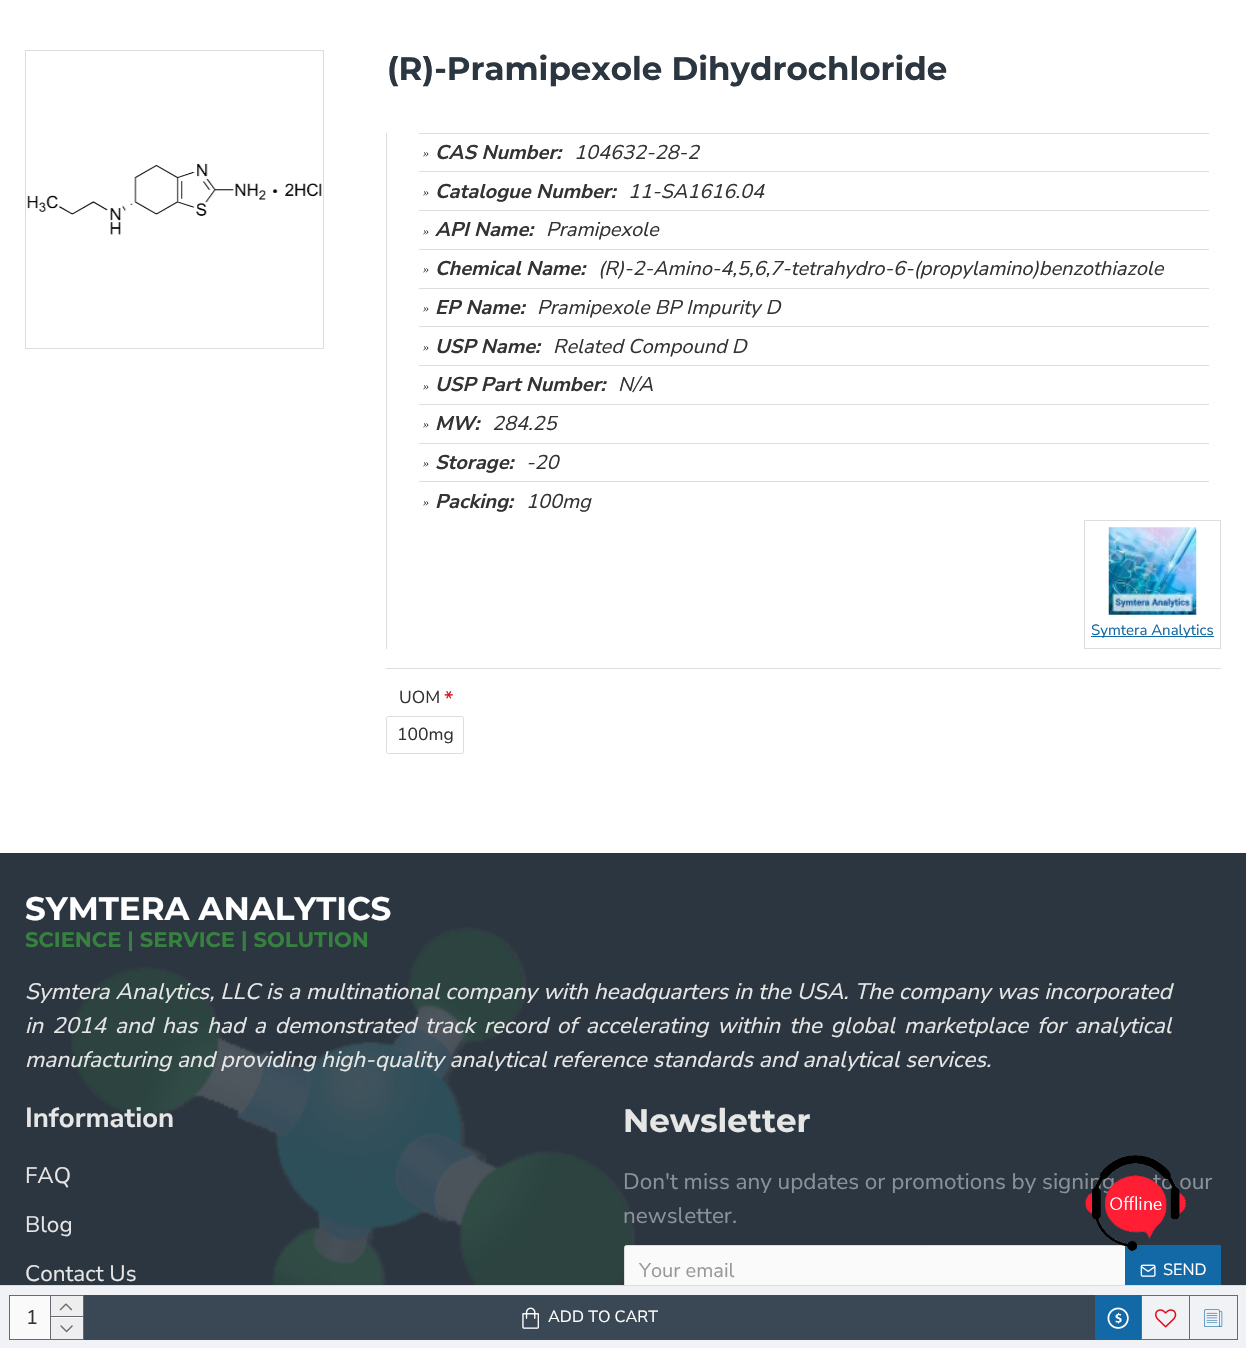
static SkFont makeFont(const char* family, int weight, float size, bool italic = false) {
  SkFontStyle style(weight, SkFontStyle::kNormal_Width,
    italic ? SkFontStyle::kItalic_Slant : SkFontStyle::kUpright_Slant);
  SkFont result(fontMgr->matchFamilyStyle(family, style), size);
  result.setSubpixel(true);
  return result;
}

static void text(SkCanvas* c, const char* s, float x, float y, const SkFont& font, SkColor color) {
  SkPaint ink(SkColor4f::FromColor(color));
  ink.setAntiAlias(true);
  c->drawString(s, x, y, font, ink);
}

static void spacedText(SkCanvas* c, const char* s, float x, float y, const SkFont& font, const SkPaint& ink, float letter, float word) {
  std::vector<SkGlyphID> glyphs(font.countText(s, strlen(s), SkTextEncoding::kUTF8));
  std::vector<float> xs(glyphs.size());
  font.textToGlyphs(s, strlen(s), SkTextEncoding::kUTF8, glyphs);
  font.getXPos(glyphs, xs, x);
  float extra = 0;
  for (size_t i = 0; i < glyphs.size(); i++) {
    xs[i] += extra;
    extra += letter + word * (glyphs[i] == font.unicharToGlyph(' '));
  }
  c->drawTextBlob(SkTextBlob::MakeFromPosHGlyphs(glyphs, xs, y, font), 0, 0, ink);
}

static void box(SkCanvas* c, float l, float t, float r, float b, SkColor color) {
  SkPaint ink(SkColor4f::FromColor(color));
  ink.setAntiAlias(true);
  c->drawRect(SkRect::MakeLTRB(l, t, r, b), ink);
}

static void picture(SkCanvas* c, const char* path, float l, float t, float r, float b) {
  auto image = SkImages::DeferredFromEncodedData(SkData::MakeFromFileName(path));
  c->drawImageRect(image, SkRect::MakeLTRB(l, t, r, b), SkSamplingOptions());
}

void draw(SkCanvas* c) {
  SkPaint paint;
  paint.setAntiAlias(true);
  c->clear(0xffffffff);
  paint.setStyle(SkPaint::kStroke_Style);
  paint.setStrokeWidth(1);
  paint.setColor(0xffdddddd);
  c->drawRect(SkRect::MakeLTRB(25.5f, 50.5f, 323.5f, 348.5f), paint);
  picture(c, "img_01.png", 27, 163, 322, 235);
  SkFont face1 = makeFont("Montserrat", 700, 32.5f);
  text(c, "(R)-Pramipexole Dihydrochloride", 387, 80, face1, 0xff2c3640);
  box(c, 386, 133, 387, 649, 0xffdddddd);
  box(c, 419, 133, 1209, 134, 0xffdddddd);
  SkFont face2 = makeFont("Liberation Serif", 400, 12, true);
  text(c, "»", 423, 157, face2, 0xff333333);
  SkFont face3 = makeFont("Nunito Sans", 700, 20, true);
  text(c, "CAS Number:", 435, 159, face3, 0xff333333);
  SkFont face4 = makeFont("Nunito Sans", 400, 20, true);
  text(c, "104632-28-2", 574, 159, face4, 0xff333333);
  box(c, 419, 171, 1209, 172, 0xffdddddd);
  text(c, "»", 423, 196, face2, 0xff333333);
  text(c, "Catalogue Number:", 435, 198, face3, 0xff333333);
  text(c, "11-SA1616.04", 628, 198, face4, 0xff333333);
  box(c, 419, 210, 1209, 211, 0xffdddddd);
  text(c, "»", 423, 235, face2, 0xff333333);
  text(c, "API Name:", 435, 236, face3, 0xff333333);
  text(c, "Pramipexole", 546, 236, face4, 0xff333333);
  box(c, 419, 249, 1209, 250, 0xffdddddd);
  text(c, "»", 423, 273, face2, 0xff333333);
  text(c, "Chemical Name:", 435, 275, face3, 0xff333333);
  text(c, "(R)-2-Amino-4,5,6,7-tetrahydro-6-(propylamino)benzothiazole", 598, 275, face4, 0xff333333);
  box(c, 419, 288, 1209, 289, 0xffdddddd);
  text(c, "»", 423, 312, face2, 0xff333333);
  text(c, "EP Name:", 435, 314, face3, 0xff333333);
  text(c, "Pramipexole BP Impurity D", 537, 314, face4, 0xff333333);
  box(c, 419, 326, 1209, 327, 0xffdddddd);
  text(c, "»", 423, 351, face2, 0xff333333);
  text(c, "USP Name:", 435, 353, face3, 0xff333333);
  text(c, "Related Compound D", 553, 353, face4, 0xff333333);
  box(c, 419, 365, 1209, 366, 0xffdddddd);
  text(c, "»", 423, 390, face2, 0xff333333);
  text(c, "USP Part Number:", 435, 391, face3, 0xff333333);
  text(c, "N/A", 618, 391, face4, 0xff333333);
  box(c, 419, 404, 1209, 405, 0xffdddddd);
  text(c, "»", 423, 428, face2, 0xff333333);
  text(c, "MW:", 435, 430, face3, 0xff333333);
  text(c, "284.25", 492, 430, face4, 0xff333333);
  box(c, 419, 443, 1209, 444, 0xffdddddd);
  text(c, "»", 423, 467, face2, 0xff333333);
  text(c, "Storage:", 435, 469, face3, 0xff333333);
  text(c, "-20", 526, 469, face4, 0xff333333);
  box(c, 419, 481, 1209, 482, 0xffdddddd);
  text(c, "»", 423, 506, face2, 0xff333333);
  text(c, "Packing:", 435, 508, face3, 0xff333333);
  text(c, "100mg", 526, 508, face4, 0xff333333);
  c->drawRect(SkRect::MakeLTRB(1084.5f, 520.5f, 1220.5f, 648.5f), paint);
  picture(c, "img_02.png", 1108, 527, 1197, 615);
  box(c, 1091, 636, 1214, 637, 0xff1369a5);
  SkFont face5 = makeFont("Nunito Sans", 400, 15);
  text(c, "Symtera Analytics", 1091, 635, face5, 0xff1369a5);
  box(c, 386, 668, 1221, 669, 0xffdddddd);
  SkFont face6 = makeFont("Nunito Sans", 400, 17.5f);
  text(c, "UOM", 399, 703, face6, 0xff333333);
  SkFont face7 = makeFont("Nunito Sans", 400, 21);
  text(c, "*", 444, 706, face7, 0xffdd0e1c);
  c->drawRoundRect(SkRect::MakeLTRB(386.5f, 716.5f, 463.5f, 753.5f), 2, 2, paint);
  text(c, "100mg", 397, 740, face6, 0xff333333);
  box(c, 0, 853, 1246, 1285, 0xff2c3640);
  picture(c, "img_09.png", 71, 927, 635, 1285);
  paint.setStyle(SkPaint::kFill_Style);
  paint.setColor(0xfffafafa);
  c->drawRoundRect(SkRect::MakeLTRB(624.5f, 1245.5f, 1220.5f, 1294.5f), 2, 2, paint);
  paint.setStyle(SkPaint::kStroke_Style);
  paint.setColor(0xffdddddd);
  c->drawRoundRect(SkRect::MakeLTRB(624.5f, 1245.5f, 1220.5f, 1294.5f), 2, 2, paint);
  box(c, 0, 1286, 1246, 1348, 0xfff0f2f5);
  box(c, 0, 1285, 1246, 1286, 0xffdddddd);
  paint.setColor(0xff696973);
  c->drawRect(SkRect::MakeLTRB(9.5f, 1295.5f, 83.5f, 1339.5f), paint);
  box(c, 10, 1296, 83, 1339, 0xfffafafa);
  SkFont face8 = makeFont("Nunito Sans", 400, 20);
  text(c, "1", 26, 1324, face8, 0xff333333);
  box(c, 50, 1296, 51, 1339, 0xff696973);
  box(c, 51, 1296, 83, 1316, 0xffeeeeee);
  box(c, 51, 1316, 83, 1317, 0xff696973);
  picture(c, "img_03.png", 59, 1303, 73, 1311);
  box(c, 51, 1318, 83, 1339, 0xffeeeeee);
  picture(c, "img_04.png", 60, 1325, 73, 1333);
  box(c, 84, 1295, 1095, 1340, 0xff3a4754);
  picture(c, "img_05.png", 522, 1307, 539, 1329);
  SkFont face9 = makeFont("Nunito Sans", 400, 16.25f);
  text(c, "ADD TO CART", 548, 1322, face9, 0xffffffff);
  box(c, 1095, 1295, 1141, 1340, 0xff1369a5);
  picture(c, "img_06.png", 1107, 1307, 1129, 1329);
  c->drawRect(SkRect::MakeLTRB(1141.5f, 1295.5f, 1189.5f, 1339.5f), paint);
  picture(c, "img_07.png", 1155, 1309, 1177, 1328);
  c->drawRect(SkRect::MakeLTRB(1189.5f, 1295.5f, 1237.5f, 1339.5f), paint);
  picture(c, "img_08.png", 1204, 1309, 1223, 1327);
  text(c, "SYMTERA ANALYTICS", 25, 920, face1, 0xffffffff);
  SkFont face10 = makeFont("Montserrat", 700, 21.1f);
  text(c, "SCIENCE | SERVICE | SOLUTION", 25, 947, face10, 0xff36813f);
  SkFont face11 = makeFont("Nunito Sans", 400, 22.5f, true);
  paint.setStyle(SkPaint::kFill_Style);
  paint.setColor(0xffe6e6e6);
  spacedText(c, "Symtera Analytics, LLC is a multinational company with headquarters in the USA. The company was incorporated", 25, 999, face11, paint, 0, 0.25f);
  spacedText(c, "in 2014 and has", 25, 1033, face11, paint, 0, 3.25f);
  spacedText(c, "had a demonstrated track record of accelerating within the global marketplace for analytical", 207, 1033, face11, paint, 0, 3.25f);
  text(c, "manufacturing and providing high-quality analytical reference standards and analytical services.", 25, 1067, face11, 0xffe6e6e6);
  SkFont face12 = makeFont("Nunito Sans", 700, 27.5f);
  text(c, "Information", 25, 1127, face12, 0xffe6e6e6);
  SkFont face13 = makeFont("Nunito Sans", 400, 22.5f);
  text(c, "FAQ", 25, 1183, face13, 0xffe6e6e6);
  text(c, "Blog", 25, 1232, face13, 0xffe6e6e6);
  text(c, "Contact Us", 25, 1281, face13, 0xffe6e6e6);
  text(c, "Newsletter", 623, 1132, face1, 0xffe6e6e6);
  text(c, "Don't miss any updates or promotions by signing", 623, 1189, face13, 0xff8b9198);
  text(c, "to our", 1153, 1189, face13, 0xff8b9198);
  text(c, "newsletter.", 623, 1223, face13, 0xff8b9198);
  text(c, "Your email", 639, 1277, face8, 0xff999999);
  box(c, 1125, 1245, 1221, 1285, 0xff1369a5);
  picture(c, "img_10.png", 1140, 1264, 1156, 1277);
  text(c, "SEND", 1163, 1275, face9, 0xffffffff);
  picture(c, "img_11.png", 1085, 1155, 1187, 1252);
}
